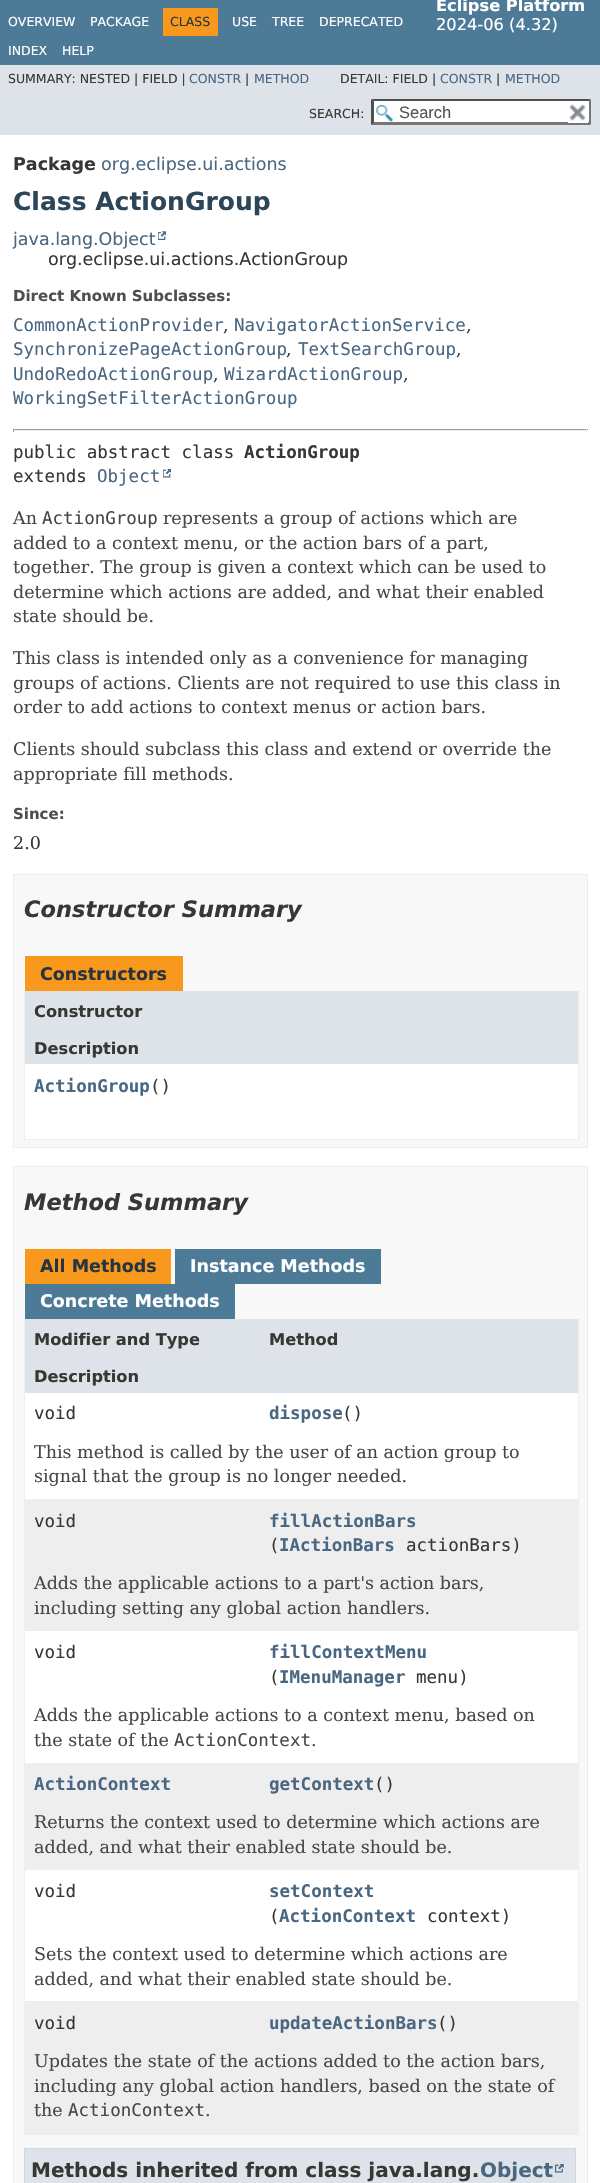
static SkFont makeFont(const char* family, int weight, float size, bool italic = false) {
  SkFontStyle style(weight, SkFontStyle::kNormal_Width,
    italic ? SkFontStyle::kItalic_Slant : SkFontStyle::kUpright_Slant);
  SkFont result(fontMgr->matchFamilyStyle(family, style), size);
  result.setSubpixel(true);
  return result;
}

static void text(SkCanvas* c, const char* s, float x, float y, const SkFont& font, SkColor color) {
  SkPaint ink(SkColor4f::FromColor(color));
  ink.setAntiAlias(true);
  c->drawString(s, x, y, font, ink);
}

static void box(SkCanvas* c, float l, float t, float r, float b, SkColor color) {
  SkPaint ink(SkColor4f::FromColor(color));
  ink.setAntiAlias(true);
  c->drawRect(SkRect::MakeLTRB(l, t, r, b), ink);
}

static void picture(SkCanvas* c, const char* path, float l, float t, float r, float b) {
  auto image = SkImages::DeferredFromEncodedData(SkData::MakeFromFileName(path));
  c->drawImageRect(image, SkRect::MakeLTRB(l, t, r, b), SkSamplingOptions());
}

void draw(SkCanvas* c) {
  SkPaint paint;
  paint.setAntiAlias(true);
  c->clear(0xffffffff);
  box(c, 0, 0, 600, 65, 0xff4d7a97);
  SkFont face1 = makeFont("DejaVu Sans", 400, 12.5f);
  text(c, "OVERVIEW", 8, 26, face1, 0xffffffff);
  text(c, "PACKAGE", 90, 26, face1, 0xffffffff);
  box(c, 163, 8, 218, 36, 0xfff8981d);
  text(c, "CLASS", 170, 26, face1, 0xff253441);
  text(c, "USE", 232, 26, face1, 0xffffffff);
  text(c, "TREE", 272, 26, face1, 0xffffffff);
  text(c, "DEPRECATED", 319, 26, face1, 0xffffffff);
  text(c, "INDEX", 8, 55, face1, 0xffffffff);
  text(c, "HELP", 62, 55, face1, 0xffffffff);
  SkFont face2 = makeFont("DejaVu Sans", 700, 16.25f);
  text(c, "Eclipse Platform", 436, 11, face2, 0xffffffff);
  SkFont face3 = makeFont("DejaVu Sans", 400, 16.25f);
  text(c, "2024-06 (4.32)", 436, 30, face3, 0xffffffff);
  box(c, 0, 65, 600, 135, 0xffdee3e9);
  text(c, "SUMMARY: NESTED | FIELD |", 8, 83, face1, 0xff353833);
  text(c, "CONSTR", 189, 83, face1, 0xff4a6782);
  text(c, "|", 245, 83, face1, 0xff353833);
  text(c, "METHOD", 254, 83, face1, 0xff4a6782);
  text(c, "DETAIL: FIELD |", 340, 83, face1, 0xff353833);
  text(c, "CONSTR", 440, 83, face1, 0xff4a6782);
  text(c, "|", 496, 83, face1, 0xff353833);
  text(c, "METHOD", 505, 83, face1, 0xff4a6782);
  text(c, "SEARCH:", 309, 118, face1, 0xff353833);
  box(c, 371, 99, 591, 125, 0xffffffff);
  picture(c, "img_01.png", 376, 105, 393, 122);
  paint.setColor(0xff4f4f4f);
  c->drawPath(SkPathBuilder().moveTo(371, 99).lineTo(591, 99).lineTo(589, 101).lineTo(374, 101).close().detach(), paint);
  paint.setColor(0xff767676);
  c->drawPath(SkPathBuilder().moveTo(591, 99).lineTo(591, 125).lineTo(589, 122.5f).lineTo(589, 101).close().detach(), paint);
  c->drawPath(SkPathBuilder().moveTo(591, 125).lineTo(371, 125).lineTo(374, 122).lineTo(589, 122).close().detach(), paint);
  paint.setColor(0xff4f4f4f);
  c->drawPath(SkPathBuilder().moveTo(371, 125).lineTo(371, 99).lineTo(374, 101).lineTo(374, 122.5f).close().detach(), paint);
  SkFont face4 = makeFont("Liberation Sans", 400, 16.5f);
  text(c, "Search", 399, 118, face4, 0xff545454);
  box(c, 568, 122, 588, 123, 0xffffffff);
  picture(c, "img_02.png", 569, 104, 586, 121);
  SkFont face5 = makeFont("DejaVu Sans", 700, 17.5f);
  text(c, "Package", 13, 170, face5, 0xff353833);
  SkFont face6 = makeFont("DejaVu Sans", 400, 17.5f);
  text(c, "org.eclipse.ui.actions", 101, 170, face6, 0xff4a6782);
  SkFont face7 = makeFont("DejaVu Sans", 700, 25);
  text(c, "Class ActionGroup", 13, 210, face7, 0xff2c4557);
  text(c, "java.lang.Object", 13, 245, face6, 0xff4a6782);
  picture(c, "img_03.png", 158, 231, 166, 240);
  text(c, "org.eclipse.ui.actions.ActionGroup", 48, 265, face6, 0xff353833);
  SkFont face8 = makeFont("DejaVu Sans", 700, 15);
  text(c, "Direct Known Subclasses:", 13, 301, face8, 0xff4e4e4e);
  SkFont face9 = makeFont("DejaVu Sans Mono", 400, 17.5f);
  text(c, "CommonActionProvider", 13, 331, face9, 0xff4a6782);
  SkFont face10 = makeFont("DejaVu Serif", 400, 17.5f);
  text(c, ",", 223, 331, face10, 0xff353833);
  text(c, "NavigatorActionService", 234, 331, face9, 0xff4a6782);
  text(c, ",", 466, 331, face10, 0xff353833);
  text(c, "SynchronizePageActionGroup", 13, 355, face9, 0xff4a6782);
  text(c, ",", 286, 355, face10, 0xff353833);
  text(c, "TextSearchGroup", 298, 355, face9, 0xff4a6782);
  text(c, ",", 456, 355, face10, 0xff353833);
  text(c, "UndoRedoActionGroup", 13, 380, face9, 0xff4a6782);
  text(c, ",", 213, 380, face10, 0xff353833);
  text(c, "WizardActionGroup", 224, 380, face9, 0xff4a6782);
  text(c, ",", 403, 380, face10, 0xff353833);
  text(c, "WorkingSetFilterActionGroup", 13, 404, face9, 0xff4a6782);
  box(c, 13, 429, 588, 430, 0xff9f9f9f);
  box(c, 586, 429, 587, 432, 0xffeeeeee);
  box(c, 13, 430, 588, 431, 0xffeeeeee);
  box(c, 13, 429, 14, 432, 0xff9f9f9f);
  text(c, "public abstract class", 13, 458, face9, 0xff353833);
  SkFont face11 = makeFont("DejaVu Sans Mono", 700, 17.5f);
  text(c, "ActionGroup", 244, 458, face11, 0xff353833);
  text(c, "extends", 13, 482, face9, 0xff353833);
  text(c, "Object", 97, 482, face9, 0xff4a6782);
  picture(c, "img_04.png", 163, 469, 171, 478);
  text(c, "An", 13, 524, face10, 0xff474747);
  text(c, "ActionGroup", 42, 524, face9, 0xff474747);
  text(c, "represents a group of actions which are", 163, 524, face10, 0xff474747);
  text(c, "added to a context menu, or the action bars of a part,", 13, 549, face10, 0xff474747);
  text(c, "together. The group is given a context which can be used to", 13, 573, face10, 0xff474747);
  text(c, "determine which actions are added, and what their enabled", 13, 598, face10, 0xff474747);
  text(c, "state should be.", 13, 622, face10, 0xff474747);
  text(c, "This class is intended only as a convenience for managing", 13, 664, face10, 0xff474747);
  text(c, "groups of actions. Clients are not required to use this class in", 13, 689, face10, 0xff474747);
  text(c, "order to add actions to context menus or action bars.", 13, 713, face10, 0xff474747);
  text(c, "Clients should subclass this class and extend or override the", 13, 755, face10, 0xff474747);
  text(c, "appropriate fill methods.", 13, 780, face10, 0xff474747);
  text(c, "Since:", 13, 819, face8, 0xff4e4e4e);
  text(c, "2.0", 13, 849, face10, 0xff353833);
  paint.setColor(0xfff8f8f8);
  c->drawRect(SkRect::MakeLTRB(13.5f, 874.5f, 587.5f, 1147.5f), paint);
  paint.setStyle(SkPaint::kStroke_Style);
  paint.setStrokeWidth(1);
  paint.setColor(0xffededed);
  c->drawRect(SkRect::MakeLTRB(13.5f, 874.5f, 587.5f, 1147.5f), paint);
  SkFont face12 = makeFont("DejaVu Sans", 700, 22.5f, true);
  text(c, "Constructor Summary", 24, 917, face12, 0xff353833);
  box(c, 25, 956, 183, 991, 0xfff8981d);
  text(c, "Constructors", 40, 980, face5, 0xff253441);
  box(c, 578, 991, 579, 1140, 0xffeeeeee);
  box(c, 24, 1139, 579, 1140, 0xffeeeeee);
  box(c, 24, 991, 25, 1140, 0xffeeeeee);
  box(c, 25, 991, 578, 1064, 0xffdee3e9);
  text(c, "Constructor", 34, 1017, face2, 0xff353833);
  text(c, "Description", 34, 1054, face2, 0xff353833);
  box(c, 25, 1064, 578, 1139, 0xffffffff);
  text(c, "ActionGroup", 34, 1092, face11, 0xff4a6782);
  text(c, "()", 150, 1092, face9, 0xff353833);
  paint.setStyle(SkPaint::kFill_Style);
  paint.setColor(0xfff8f8f8);
  c->drawRect(SkRect::MakeLTRB(13.5f, 1166.5f, 587.5f, 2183.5f), paint);
  paint.setStyle(SkPaint::kStroke_Style);
  paint.setColor(0xffededed);
  c->drawRect(SkRect::MakeLTRB(13.5f, 1166.5f, 587.5f, 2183.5f), paint);
  text(c, "Method Summary", 24, 1210, face12, 0xff353833);
  box(c, 25, 1249, 171, 1284, 0xfff8981d);
  text(c, "All Methods", 40, 1272, face5, 0xff253441);
  box(c, 175, 1249, 381, 1284, 0xff4d7a97);
  text(c, "Instance Methods", 190, 1272, face5, 0xffffffff);
  box(c, 25, 1284, 235, 1319, 0xff4d7a97);
  text(c, "Concrete Methods", 40, 1307, face5, 0xffffffff);
  box(c, 578, 1319, 579, 2135, 0xffeeeeee);
  box(c, 24, 2134, 579, 2135, 0xffeeeeee);
  box(c, 24, 1319, 25, 2135, 0xffeeeeee);
  box(c, 25, 1319, 578, 1355, 0xffdee3e9);
  text(c, "Modifier and Type", 34, 1345, face2, 0xff353833);
  text(c, "Method", 269, 1345, face2, 0xff353833);
  box(c, 25, 1355, 578, 1393, 0xffdee3e9);
  text(c, "Description", 34, 1382, face2, 0xff353833);
  box(c, 25, 1393, 578, 1430, 0xffffffff);
  text(c, "void", 34, 1419, face9, 0xff353833);
  text(c, "dispose", 269, 1419, face11, 0xff4a6782);
  text(c, "()", 342, 1419, face9, 0xff353833);
  box(c, 25, 1430, 578, 1499, 0xffffffff);
  text(c, "This method is called by the user of an action group to", 34, 1458, face10, 0xff474747);
  text(c, "signal that the group is no longer needed.", 34, 1482, face10, 0xff474747);
  box(c, 25, 1499, 578, 1563, 0xffeeeeef);
  text(c, "void", 34, 1527, face9, 0xff353833);
  text(c, "fillActionBars", 269, 1527, face11, 0xff4a6782);
  text(c, "(", 269, 1551, face9, 0xff353833);
  text(c, "IActionBars", 279, 1551, face11, 0xff4a6782);
  text(c, "actionBars)", 406, 1551, face9, 0xff353833);
  box(c, 25, 1563, 578, 1631, 0xffeeeeef);
  text(c, "Adds the applicable actions to a part's action bars,", 34, 1589, face10, 0xff474747);
  text(c, "including setting any global action handlers.", 34, 1614, face10, 0xff474747);
  box(c, 25, 1631, 578, 1694, 0xffffffff);
  text(c, "void", 34, 1658, face9, 0xff353833);
  text(c, "fillContextMenu", 269, 1658, face11, 0xff4a6782);
  text(c, "(", 269, 1683, face9, 0xff353833);
  text(c, "IMenuManager", 279, 1683, face11, 0xff4a6782);
  text(c, "menu)", 416, 1683, face9, 0xff353833);
  box(c, 25, 1694, 578, 1763, 0xffffffff);
  text(c, "Adds the applicable actions to a context menu, based on", 34, 1721, face10, 0xff474747);
  text(c, "the state of the", 34, 1746, face10, 0xff474747);
  text(c, "ActionContext", 174, 1746, face9, 0xff474747);
  text(c, ".", 311, 1746, face10, 0xff474747);
  box(c, 25, 1763, 578, 1801, 0xffeeeeef);
  text(c, "ActionContext", 34, 1790, face11, 0xff4a6782);
  text(c, "getContext", 269, 1790, face11, 0xff4a6782);
  text(c, "()", 374, 1790, face9, 0xff353833);
  box(c, 25, 1801, 578, 1870, 0xffeeeeef);
  text(c, "Returns the context used to determine which actions are", 34, 1828, face10, 0xff474747);
  text(c, "added, and what their enabled state should be.", 34, 1853, face10, 0xff474747);
  box(c, 25, 1870, 578, 1933, 0xffffffff);
  text(c, "void", 34, 1897, face9, 0xff353833);
  text(c, "setContext", 269, 1897, face11, 0xff4a6782);
  text(c, "(", 269, 1922, face9, 0xff353833);
  text(c, "ActionContext", 279, 1922, face11, 0xff4a6782);
  text(c, "context)", 427, 1922, face9, 0xff353833);
  box(c, 25, 1933, 578, 2001, 0xffffffff);
  text(c, "Sets the context used to determine which actions are", 34, 1960, face10, 0xff474747);
  text(c, "added, and what their enabled state should be.", 34, 1985, face10, 0xff474747);
  box(c, 25, 2001, 578, 2040, 0xffeeeeef);
  text(c, "void", 34, 2029, face9, 0xff353833);
  text(c, "updateActionBars", 269, 2029, face11, 0xff4a6782);
  text(c, "()", 437, 2029, face9, 0xff353833);
  box(c, 25, 2040, 578, 2134, 0xffeeeeef);
  text(c, "Updates the state of the actions added to the action bars,", 34, 2067, face10, 0xff474747);
  text(c, "including any global action handlers, based on the state of", 34, 2092, face10, 0xff474747);
  text(c, "the", 34, 2116, face10, 0xff474747);
  text(c, "ActionContext", 68, 2116, face9, 0xff474747);
  text(c, ".", 205, 2116, face10, 0xff474747);
  paint.setStyle(SkPaint::kFill_Style);
  paint.setColor(0xffdee3e9);
  c->drawRect(SkRect::MakeLTRB(24.5f, 2148.5f, 575.5f, 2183.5f), paint);
  paint.setStyle(SkPaint::kStroke_Style);
  paint.setColor(0xffd0d9e0);
  c->drawRect(SkRect::MakeLTRB(24.5f, 2148.5f, 575.5f, 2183.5f), paint);
  SkFont face13 = makeFont("DejaVu Sans", 700, 20);
  text(c, "Methods inherited from class java.lang.", 31, 2177, face13, 0xff353833);
  text(c, "Object", 480, 2177, face13, 0xff4a6782);
  picture(c, "img_05.png", 555, 2164, 564, 2173);
}
